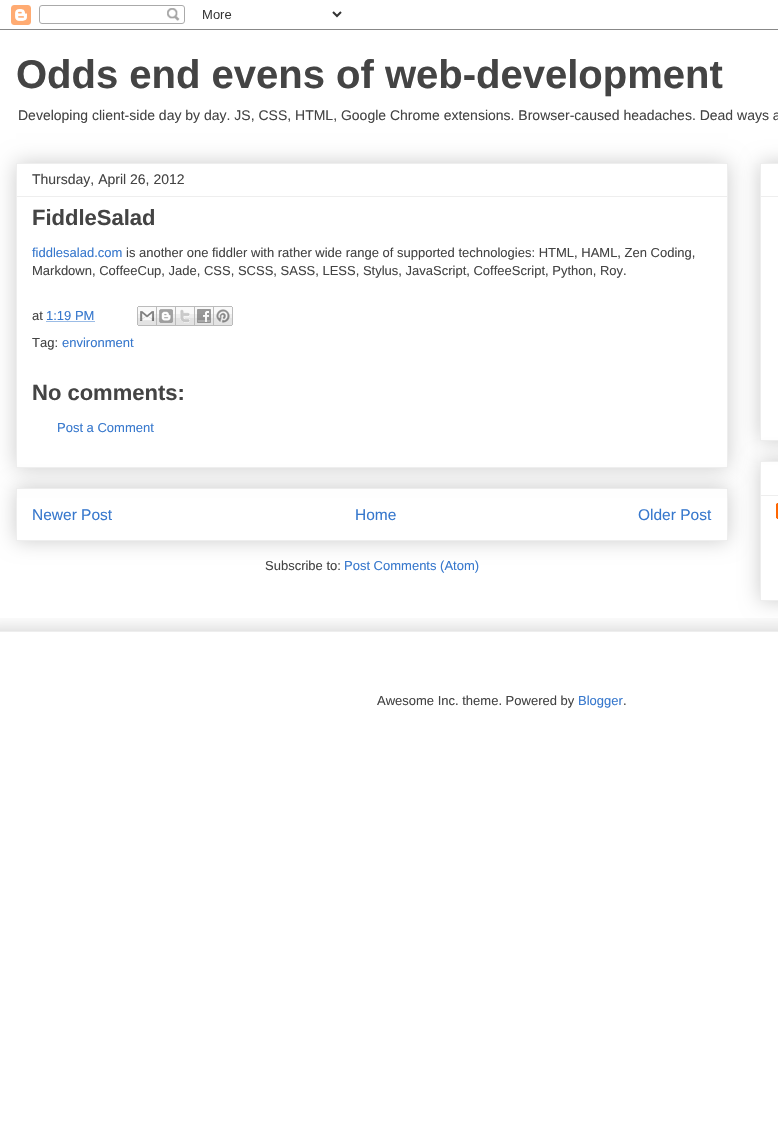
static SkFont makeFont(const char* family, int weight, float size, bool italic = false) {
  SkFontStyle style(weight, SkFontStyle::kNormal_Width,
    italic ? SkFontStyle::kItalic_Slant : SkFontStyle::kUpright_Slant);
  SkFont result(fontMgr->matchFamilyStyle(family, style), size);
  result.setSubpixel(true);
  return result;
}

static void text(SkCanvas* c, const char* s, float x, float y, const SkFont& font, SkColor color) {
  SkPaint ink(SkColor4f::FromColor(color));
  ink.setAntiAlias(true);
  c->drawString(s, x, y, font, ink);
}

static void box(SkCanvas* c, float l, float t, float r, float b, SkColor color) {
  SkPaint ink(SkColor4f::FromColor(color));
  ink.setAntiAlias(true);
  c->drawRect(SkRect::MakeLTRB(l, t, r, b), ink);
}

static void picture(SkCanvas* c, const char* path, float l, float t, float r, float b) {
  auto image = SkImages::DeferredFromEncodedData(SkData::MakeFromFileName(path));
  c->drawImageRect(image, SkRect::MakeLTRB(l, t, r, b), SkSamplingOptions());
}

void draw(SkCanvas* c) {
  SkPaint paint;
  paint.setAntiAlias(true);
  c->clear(0xffffffff);
  picture(c, "img_01.png", 0, 5, 778, 30);
  SkFont face1 = makeFont("Liberation Sans", 700, 40);
  text(c, "Odds end evens of web-development", 16, 88, face1, 0xff444444);
  SkFont face2 = makeFont("Liberation Sans", 400, 14);
  text(c, "Developing client-side day by day. JS, CSS, HTML, Google Chrome extensions. Browser-caused headaches. Dead ways a", 18, 120, face2, 0xff444444);
  c->save();
  c->clipPath(SkPathBuilder(SkPathFillType::kEvenOdd).moveTo(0, 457).lineTo(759, 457).lineTo(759, 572).lineTo(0, 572).close().moveTo(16, 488).lineTo(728, 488).lineTo(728, 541).lineTo(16, 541).close().detach(), true);
  paint.setColor(0x33000000);
  paint.setMaskFilter(SkMaskFilter::MakeBlur(kNormal_SkBlurStyle, 10));
  c->drawRect(SkRect::MakeLTRB(16, 488, 728, 541), paint);
  paint.setMaskFilter(nullptr);
  c->restore();
  paint.setStyle(SkPaint::kStroke_Style);
  paint.setStrokeWidth(1);
  paint.setColor(0xffeeeeee);
  c->drawRect(SkRect::MakeLTRB(16.5f, 488.5f, 727.5f, 540.5f), paint);
  c->save();
  c->clipPath(SkPathBuilder(SkPathFillType::kEvenOdd).moveTo(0, 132).lineTo(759, 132).lineTo(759, 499).lineTo(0, 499).close().moveTo(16, 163).lineTo(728, 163).lineTo(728, 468).lineTo(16, 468).close().detach(), true);
  paint.setStyle(SkPaint::kFill_Style);
  paint.setColor(0x33000000);
  paint.setMaskFilter(SkMaskFilter::MakeBlur(kNormal_SkBlurStyle, 10));
  c->drawRect(SkRect::MakeLTRB(16, 163, 728, 468), paint);
  paint.setMaskFilter(nullptr);
  c->restore();
  paint.setStyle(SkPaint::kStroke_Style);
  paint.setColor(0xffeeeeee);
  c->drawRect(SkRect::MakeLTRB(16.5f, 163.5f, 727.5f, 467.5f), paint);
  text(c, "Thursday, April 26, 2012", 32, 184, face2, 0xff444444);
  box(c, 17, 196, 727, 197, 0xffeeeeee);
  SkFont face3 = makeFont("Liberation Sans", 700, 22);
  text(c, "FiddleSalad", 32, 225, face3, 0xff444444);
  SkFont face4 = makeFont("Liberation Sans", 400, 13);
  text(c, "fiddlesalad.com", 32, 257, face4, 0xff3778cd);
  text(c, "is another one fiddler with rather wide range of supported technologies: HTML, HAML, Zen Coding,", 126, 257, face4, 0xff444444);
  text(c, "Markdown, CoffeeCup, Jade, CSS, SCSS, SASS, LESS, Stylus, JavaScript, CoffeeScript, Python, Roy.", 32, 275, face4, 0xff444444);
  text(c, "at", 32, 320, face4, 0xff444444);
  text(c, "1:19 PM", 46, 320, face4, 0xff3778cd);
  paint.setColor(0xff3778cd);
  paint.setPathEffect(SkDashPathEffect::Make({{1, 1}}, 0));
  c->drawPath(SkPathBuilder().moveTo(46.5f, 321.5f).lineTo(95, 321.5f).detach(), paint);
  paint.setPathEffect(nullptr);
  picture(c, "img_02.png", 137, 306, 157, 326);
  picture(c, "img_03.png", 157, 306, 176, 326);
  picture(c, "img_04.png", 176, 306, 195, 326);
  picture(c, "img_05.png", 195, 306, 214, 326);
  picture(c, "img_06.png", 214, 306, 233, 326);
  text(c, "Tag:", 32, 347, face4, 0xff444444);
  text(c, "environment", 62, 347, face4, 0xff3778cd);
  text(c, "No comments:", 32, 400, face3, 0xff444444);
  text(c, "Post a Comment", 57, 432, face4, 0xff3778cd);
  SkFont face5 = makeFont("Liberation Sans", 400, 15.5f);
  text(c, "Newer Post", 32, 520, face5, 0xff3778cd);
  text(c, "Home", 355, 520, face5, 0xff3778cd);
  text(c, "Older Post", 638, 520, face5, 0xff3778cd);
  text(c, "Subscribe to:", 265, 570, face4, 0xff444444);
  text(c, "Post Comments (Atom)", 344, 570, face4, 0xff3778cd);
  c->save();
  c->clipPath(SkPathBuilder(SkPathFillType::kEvenOdd).moveTo(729, 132).lineTo(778, 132).lineTo(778, 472).lineTo(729, 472).close().moveTo(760, 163).lineTo(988, 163).lineTo(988, 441).lineTo(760, 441).close().detach(), true);
  paint.setStyle(SkPaint::kFill_Style);
  paint.setColor(0x33000000);
  paint.setMaskFilter(SkMaskFilter::MakeBlur(kNormal_SkBlurStyle, 10));
  c->drawRect(SkRect::MakeLTRB(760, 163, 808, 441), paint);
  paint.setMaskFilter(nullptr);
  c->restore();
  paint.setStyle(SkPaint::kStroke_Style);
  paint.setColor(0xffeeeeee);
  c->drawRect(SkRect::MakeLTRB(760.5f, 163.5f, 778.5f, 440.5f), paint);
  box(c, 761, 196, 778, 197, 0xffeeeeee);
  c->save();
  c->clipPath(SkPathBuilder(SkPathFillType::kEvenOdd).moveTo(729, 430).lineTo(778, 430).lineTo(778, 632).lineTo(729, 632).close().moveTo(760, 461).lineTo(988, 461).lineTo(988, 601).lineTo(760, 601).close().detach(), true);
  paint.setStyle(SkPaint::kFill_Style);
  paint.setColor(0x33000000);
  paint.setMaskFilter(SkMaskFilter::MakeBlur(kNormal_SkBlurStyle, 10));
  c->drawRect(SkRect::MakeLTRB(760, 461, 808, 601), paint);
  paint.setMaskFilter(nullptr);
  c->restore();
  paint.setStyle(SkPaint::kStroke_Style);
  paint.setColor(0xffeeeeee);
  c->drawRect(SkRect::MakeLTRB(760.5f, 461.5f, 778.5f, 600.5f), paint);
  box(c, 761, 495, 778, 496, 0xffeeeeee);
  picture(c, "img_07.png", 776, 503, 778, 519);
  c->save();
  c->clipRect(SkRect::MakeLTRB(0, 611, 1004, 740));
  c->clipRect(SkRect::MakeLTRB(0, 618, 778, 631));
  paint.setStyle(SkPaint::kFill_Style);
  paint.setColor(0x33000000);
  paint.setMaskFilter(SkMaskFilter::MakeBlur(kNormal_SkBlurStyle, 10));
  c->drawRect(SkRect::MakeLTRB(-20, 631, 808, 740), paint);
  paint.setMaskFilter(nullptr);
  c->restore();
  box(c, 0, 631, 778, 632, 0xffeeeeee);
  text(c, "Awesome Inc. theme. Powered by", 377, 705, face4, 0xff444444);
  text(c, "Blogger", 578, 705, face4, 0xff3778cd);
  text(c, ".", 623, 705, face4, 0xff444444);
}
